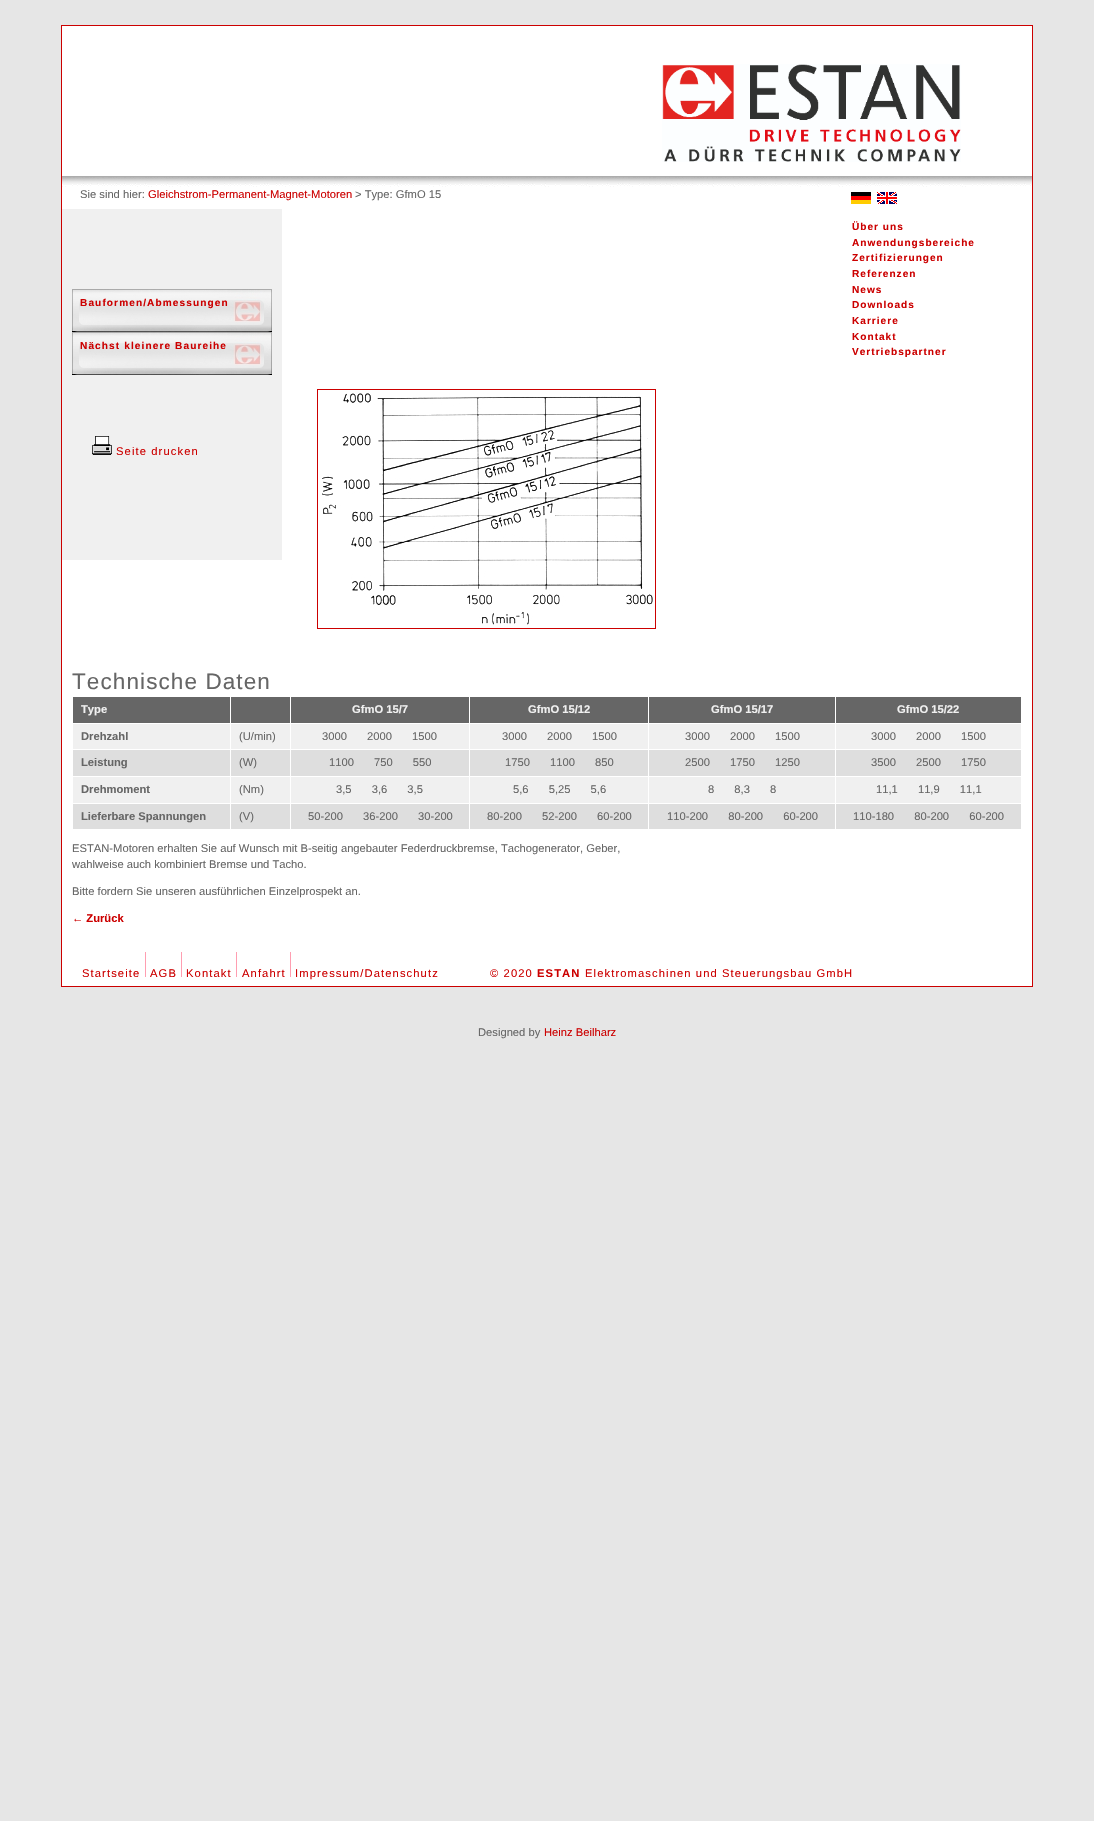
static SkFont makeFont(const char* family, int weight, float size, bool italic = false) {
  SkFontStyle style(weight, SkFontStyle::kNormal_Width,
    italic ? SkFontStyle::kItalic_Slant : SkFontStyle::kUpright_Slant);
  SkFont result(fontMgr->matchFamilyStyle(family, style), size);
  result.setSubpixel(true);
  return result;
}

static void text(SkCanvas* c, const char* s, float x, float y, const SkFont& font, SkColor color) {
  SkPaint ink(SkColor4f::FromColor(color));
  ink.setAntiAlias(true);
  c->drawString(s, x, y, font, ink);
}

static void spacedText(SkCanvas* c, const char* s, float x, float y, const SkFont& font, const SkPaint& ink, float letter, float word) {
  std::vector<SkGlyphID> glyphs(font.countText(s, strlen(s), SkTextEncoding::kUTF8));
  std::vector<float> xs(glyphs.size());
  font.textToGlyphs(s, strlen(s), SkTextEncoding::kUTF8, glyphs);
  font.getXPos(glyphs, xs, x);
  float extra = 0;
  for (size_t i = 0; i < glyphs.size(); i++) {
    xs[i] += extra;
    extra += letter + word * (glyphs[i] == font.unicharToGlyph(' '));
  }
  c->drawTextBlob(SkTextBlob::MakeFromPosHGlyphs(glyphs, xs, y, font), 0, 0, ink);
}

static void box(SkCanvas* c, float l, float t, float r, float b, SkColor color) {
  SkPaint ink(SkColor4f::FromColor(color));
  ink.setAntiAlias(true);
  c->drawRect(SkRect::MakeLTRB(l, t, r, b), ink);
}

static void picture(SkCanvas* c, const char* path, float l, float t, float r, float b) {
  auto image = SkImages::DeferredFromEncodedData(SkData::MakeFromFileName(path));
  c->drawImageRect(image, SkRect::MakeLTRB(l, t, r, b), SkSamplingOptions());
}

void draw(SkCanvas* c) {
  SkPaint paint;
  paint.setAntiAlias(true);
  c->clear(0xffe6e6e6);
  box(c, 62, 26, 1032, 176, 0xffffffff);
  box(c, 61, 25, 1033, 26, 0xffcc0000);
  box(c, 1032, 25, 1033, 987, 0xffcc0000);
  box(c, 61, 25, 62, 176, 0xffcc0000);
  picture(c, "img_01.png", 662, 64, 961, 162);
  box(c, 62, 187, 1032, 986, 0xffffffff);
  box(c, 61, 986, 1033, 987, 0xffcc0000);
  box(c, 61, 176, 62, 987, 0xffcc0000);
  picture(c, "img_02.png", 62, 176, 1032, 187);
  SkFont face1 = makeFont("Liberation Sans", 400, 11.2f);
  text(c, "Sie sind hier:", 80, 198, face1, 0xff666666);
  text(c, "Gleichstrom-Permanent-Magnet-Motoren", 148, 198, face1, 0xffcc0000);
  text(c, "> Type: GfmO 15", 355, 198, face1, 0xff666666);
  picture(c, "img_03.png", 851, 192, 871, 204);
  picture(c, "img_04.png", 877, 192, 897, 204);
  box(c, 62, 209, 282, 560, 0xfff0f0f0);
  picture(c, "img_05.png", 72, 289, 272, 332);
  SkFont face2 = makeFont("Liberation Sans", 700, 10.1f);
  paint.setColor(0xffcc0000);
  spacedText(c, "Bauformen/Abmessungen", 80, 306, face2, paint, 1.1f, 0);
  picture(c, "img_05.png", 72, 332, 272, 375);
  spacedText(c, "Nächst kleinere Baureihe", 80, 349, face2, paint, 1.1f, 0);
  picture(c, "img_06.png", 92, 436, 112, 455);
  spacedText(c, "Seite drucken", 116, 455, face1, paint, 1.1f, 0);
  paint.setStyle(SkPaint::kStroke_Style);
  paint.setStrokeWidth(1);
  c->drawRect(SkRect::MakeLTRB(317.5f, 389.5f, 655.5f, 628.5f), paint);
  picture(c, "img_07.png", 322, 393, 653, 625);
  paint.setStyle(SkPaint::kFill_Style);
  spacedText(c, "Über uns", 852, 230, face2, paint, 1, 0);
  spacedText(c, "Anwendungsbereiche", 852, 246, face2, paint, 1, 0);
  spacedText(c, "Zertifizierungen", 852, 261, face2, paint, 1, 0);
  spacedText(c, "Referenzen", 852, 277, face2, paint, 1, 0);
  spacedText(c, "News", 852, 293, face2, paint, 1, 0);
  spacedText(c, "Downloads", 852, 308, face2, paint, 1, 0);
  spacedText(c, "Karriere", 852, 324, face2, paint, 1, 0);
  spacedText(c, "Kontakt", 852, 340, face2, paint, 1, 0);
  spacedText(c, "Vertriebspartner", 852, 355, face2, paint, 1, 0);
  SkFont face3 = makeFont("Liberation Sans", 400, 22.5f);
  paint.setColor(0xff666666);
  spacedText(c, "Technische Daten", 72, 689, face3, paint, 1.1f, 0);
  box(c, 73, 724, 1021, 803, 0xfff0f0f0);
  box(c, 73, 697, 1021, 723, 0xff666666);
  SkFont face4 = makeFont("Liberation Sans", 700, 11.2f);
  text(c, "Type", 81, 713, face4, 0xfff0f0f0);
  text(c, "GfmO 15/7", 352, 713, face4, 0xfff0f0f0);
  text(c, "GfmO 15/12", 528, 713, face4, 0xfff0f0f0);
  text(c, "GfmO 15/17", 711, 713, face4, 0xfff0f0f0);
  text(c, "GfmO 15/22", 897, 713, face4, 0xfff0f0f0);
  text(c, "Drehzahl", 81, 740, face4, 0xff666666);
  text(c, "(U/min)", 239, 740, face1, 0xff666666);
  spacedText(c, "3000 2000 1500", 322, 740, face1, paint, 0, 17);
  spacedText(c, "3000 2000 1500", 502, 740, face1, paint, 0, 17);
  spacedText(c, "3000 2000 1500", 685, 740, face1, paint, 0, 17);
  spacedText(c, "3000 2000 1500", 871, 740, face1, paint, 0, 17);
  box(c, 73, 750, 1021, 776, 0xffdedede);
  box(c, 72, 749, 1022, 750, 0xffffffff);
  text(c, "Leistung", 81, 766, face4, 0xff666666);
  text(c, "(W)", 239, 766, face1, 0xff666666);
  spacedText(c, "1100 750 550", 329, 766, face1, paint, 0, 17);
  spacedText(c, "1750 1100 850", 505, 766, face1, paint, 0, 17);
  spacedText(c, "2500 1750 1250", 685, 766, face1, paint, 0, 17);
  spacedText(c, "3500 2500 1750", 871, 766, face1, paint, 0, 17);
  box(c, 72, 776, 1022, 777, 0xffffffff);
  text(c, "Drehmoment", 81, 793, face4, 0xff666666);
  text(c, "(Nm)", 239, 793, face1, 0xff666666);
  spacedText(c, "3,5 3,6 3,5", 336, 793, face1, paint, 0, 17);
  spacedText(c, "5,6 5,25 5,6", 513, 793, face1, paint, 0, 17);
  spacedText(c, "8 8,3 8", 708, 793, face1, paint, 0, 17);
  spacedText(c, "11,1 11,9 11,1", 876, 793, face1, paint, 0, 17);
  box(c, 73, 804, 1021, 829, 0xffdedede);
  text(c, "Lieferbare Spannungen", 81, 820, face4, 0xff666666);
  box(c, 230, 696, 231, 830, 0xffffffff);
  text(c, "(V)", 239, 820, face1, 0xff666666);
  box(c, 290, 696, 291, 830, 0xffffffff);
  spacedText(c, "50-200 36-200 30-200", 308, 820, face1, paint, 0, 17);
  box(c, 469, 696, 470, 830, 0xffffffff);
  spacedText(c, "80-200 52-200 60-200", 487, 820, face1, paint, 0, 17);
  box(c, 648, 696, 649, 830, 0xffffffff);
  spacedText(c, "110-200 80-200 60-200", 667, 820, face1, paint, 0, 17);
  box(c, 835, 696, 836, 830, 0xffffffff);
  spacedText(c, "110-180 80-200 60-200", 853, 820, face1, paint, 0, 17);
  text(c, "ESTAN-Motoren erhalten Sie auf Wunsch mit B-seitig angebauter Federdruckbremse, Tachogenerator, Geber,", 72, 852, face1, 0xff666666);
  text(c, "wahlweise auch kombiniert Bremse und Tacho.", 72, 868, face1, 0xff666666);
  text(c, "Bitte fordern Sie unseren ausführlichen Einzelprospekt an.", 72, 895, face1, 0xff666666);
  text(c, "← Zurück", 72, 922, face4, 0xffcc0000);
  paint.setColor(0xffcc0000);
  spacedText(c, "Startseite", 82, 977, face1, paint, 1.1f, 0);
  box(c, 145, 952, 146, 977, 0xffff9eb1);
  spacedText(c, "AGB", 150, 977, face1, paint, 1.1f, 0);
  box(c, 181, 952, 182, 977, 0xffff9eb1);
  spacedText(c, "Kontakt", 186, 977, face1, paint, 1.1f, 0);
  box(c, 236, 952, 237, 977, 0xffff9eb1);
  spacedText(c, "Anfahrt", 242, 977, face1, paint, 1.1f, 0);
  box(c, 290, 952, 291, 977, 0xffff9eb1);
  spacedText(c, "Impressum/Datenschutz", 295, 977, face1, paint, 1.1f, 0);
  spacedText(c, "© 2020", 490, 977, face1, paint, 1.1f, 0);
  spacedText(c, "ESTAN", 537, 977, face4, paint, 1.1f, 0);
  spacedText(c, "Elektromaschinen und Steuerungsbau GmbH", 585, 977, face1, paint, 1.1f, 0);
  text(c, "Designed by", 478, 1036, face1, 0xff666666);
  text(c, "Heinz Beilharz", 544, 1036, face1, 0xffcc0000);
}
